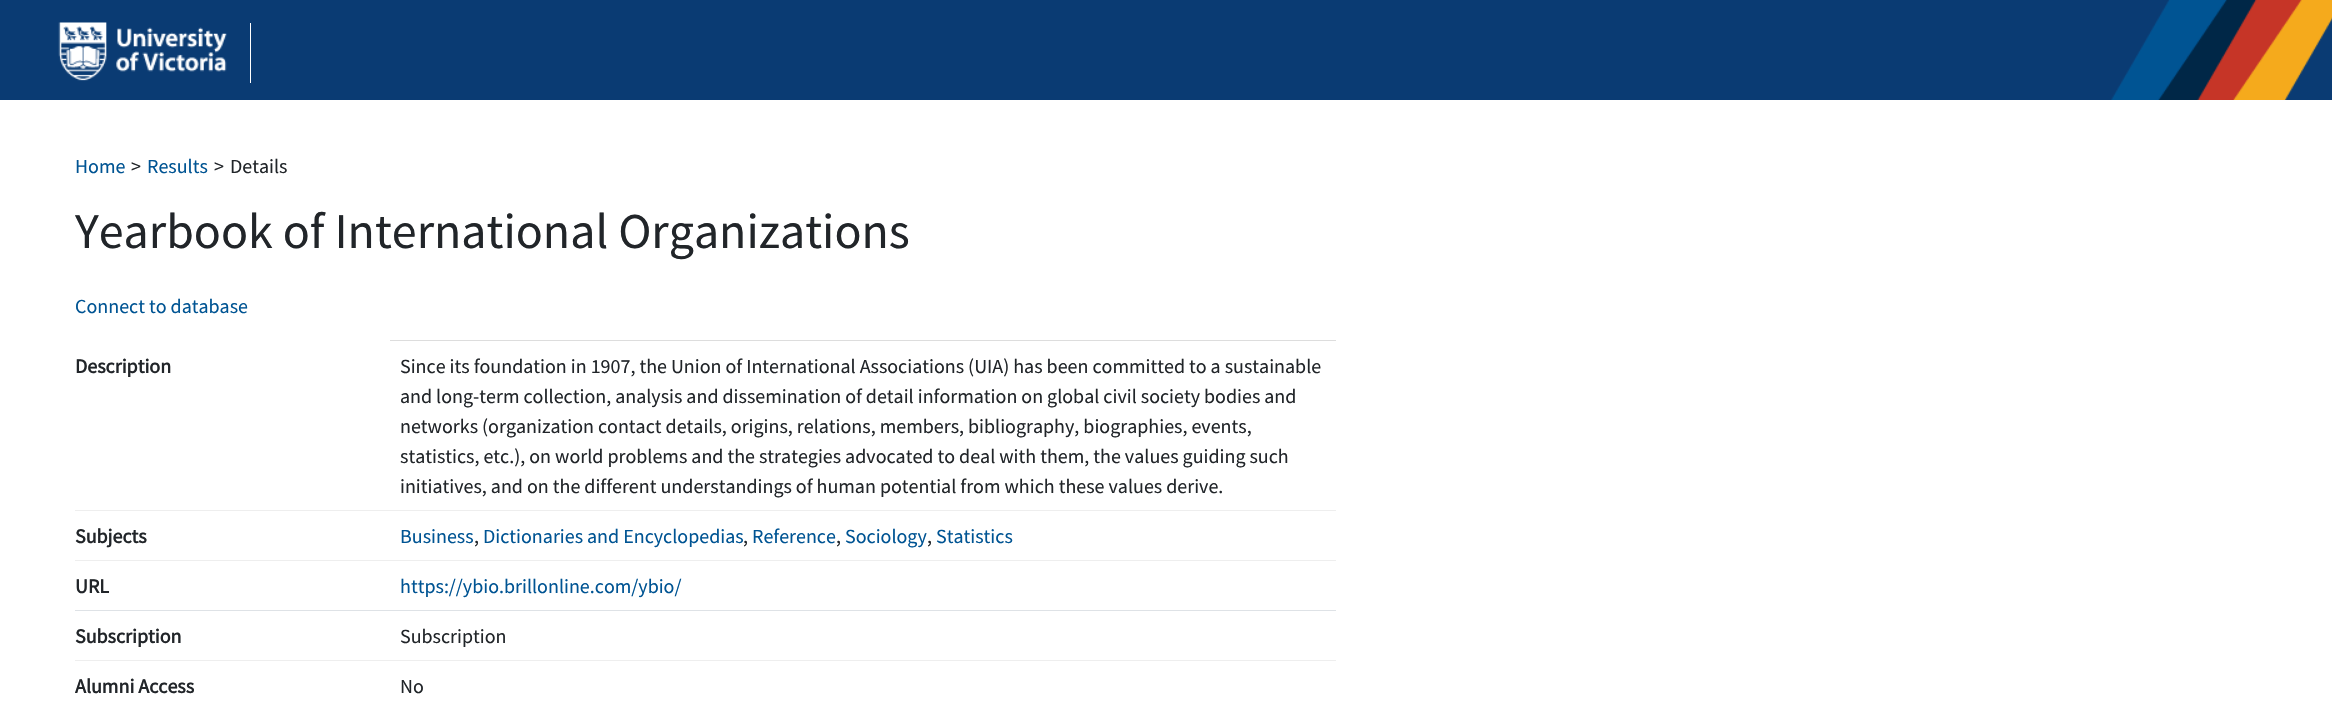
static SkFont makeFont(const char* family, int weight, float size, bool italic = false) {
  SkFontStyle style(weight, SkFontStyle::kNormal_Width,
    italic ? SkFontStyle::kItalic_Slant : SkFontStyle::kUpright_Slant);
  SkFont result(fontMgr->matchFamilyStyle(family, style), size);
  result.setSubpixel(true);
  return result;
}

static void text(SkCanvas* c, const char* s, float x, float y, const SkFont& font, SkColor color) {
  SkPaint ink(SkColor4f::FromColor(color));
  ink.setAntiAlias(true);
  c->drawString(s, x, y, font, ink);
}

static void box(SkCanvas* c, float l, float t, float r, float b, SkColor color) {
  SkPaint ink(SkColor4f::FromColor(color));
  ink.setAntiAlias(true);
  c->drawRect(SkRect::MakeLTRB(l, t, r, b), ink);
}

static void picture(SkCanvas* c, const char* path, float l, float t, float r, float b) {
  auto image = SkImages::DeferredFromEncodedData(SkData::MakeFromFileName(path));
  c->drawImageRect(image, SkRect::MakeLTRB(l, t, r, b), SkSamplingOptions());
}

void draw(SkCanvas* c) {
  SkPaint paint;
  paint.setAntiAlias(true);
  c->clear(0xffffffff);
  box(c, 0, 0, 2332, 100, 0xff0a3b73);
  picture(c, "img_01.png", 58, 22, 227, 81);
  box(c, 250, 23, 251, 83, 0xffffffff);
  picture(c, "img_02.png", 2111, 0, 2332, 100);
  SkFont face1 = makeFont("Source Sans Pro", 400, 20);
  text(c, "Home", 75, 173, face1, 0xff005493);
  text(c, ">", 131, 173, face1, 0xff212529);
  text(c, "Results", 147, 173, face1, 0xff005493);
  text(c, ">", 214, 173, face1, 0xff212529);
  text(c, "Details", 230, 173, face1, 0xff212529);
  SkFont face2 = makeFont("Source Sans Pro", 400, 50);
  text(c, "Yearbook of International Organizations", 75, 248, face2, 0xff212529);
  text(c, "Connect to database", 75, 313, face1, 0xff005493);
  SkFont face3 = makeFont("Source Sans Pro", 700, 20);
  text(c, "Description", 75, 373, face3, 0xff212529);
  box(c, 390, 340, 1336, 341, 0xffdddddd);
  box(c, 75, 510, 1336, 511, 0xffeeeeee);
  text(c, "Since its foundation in 1907, the Union of International Associations (UIA) has been committed to a sustainable", 400, 373, face1, 0xff212529);
  text(c, "and long-term collection, analysis and dissemination of detail information on global civil society bodies and", 400, 403, face1, 0xff212529);
  text(c, "networks (organization contact details, origins, relations, members, bibliography, biographies, events,", 400, 433, face1, 0xff212529);
  text(c, "statistics, etc.), on world problems and the strategies advocated to deal with them, the values guiding such", 400, 463, face1, 0xff212529);
  text(c, "initiatives, and on the different understandings of human potential from which these values derive.", 400, 493, face1, 0xff212529);
  text(c, "Subjects", 75, 543, face3, 0xff212529);
  box(c, 75, 560, 1336, 561, 0xffeeeeee);
  text(c, "Business", 400, 543, face1, 0xff005493);
  text(c, ",", 474, 543, face1, 0xff212529);
  text(c, "Dictionaries and Encyclopedias", 483, 543, face1, 0xff005493);
  text(c, ",", 743, 543, face1, 0xff212529);
  text(c, "Reference", 752, 543, face1, 0xff005493);
  text(c, ",", 836, 543, face1, 0xff212529);
  text(c, "Sociology", 845, 543, face1, 0xff005493);
  text(c, ",", 927, 543, face1, 0xff212529);
  text(c, "Statistics", 936, 543, face1, 0xff005493);
  text(c, "URL", 75, 593, face3, 0xff212529);
  box(c, 75, 610, 1336, 611, 0xffdee2e6);
  text(c, "https://ybio.brillonline.com/ybio/", 400, 593, face1, 0xff005493);
  text(c, "Subscription", 75, 643, face3, 0xff212529);
  box(c, 75, 660, 1336, 661, 0xffeeeeee);
  text(c, "Subscription", 400, 643, face1, 0xff212529);
  text(c, "Alumni Access", 75, 693, face3, 0xff212529);
  text(c, "No", 400, 693, face1, 0xff212529);
}
